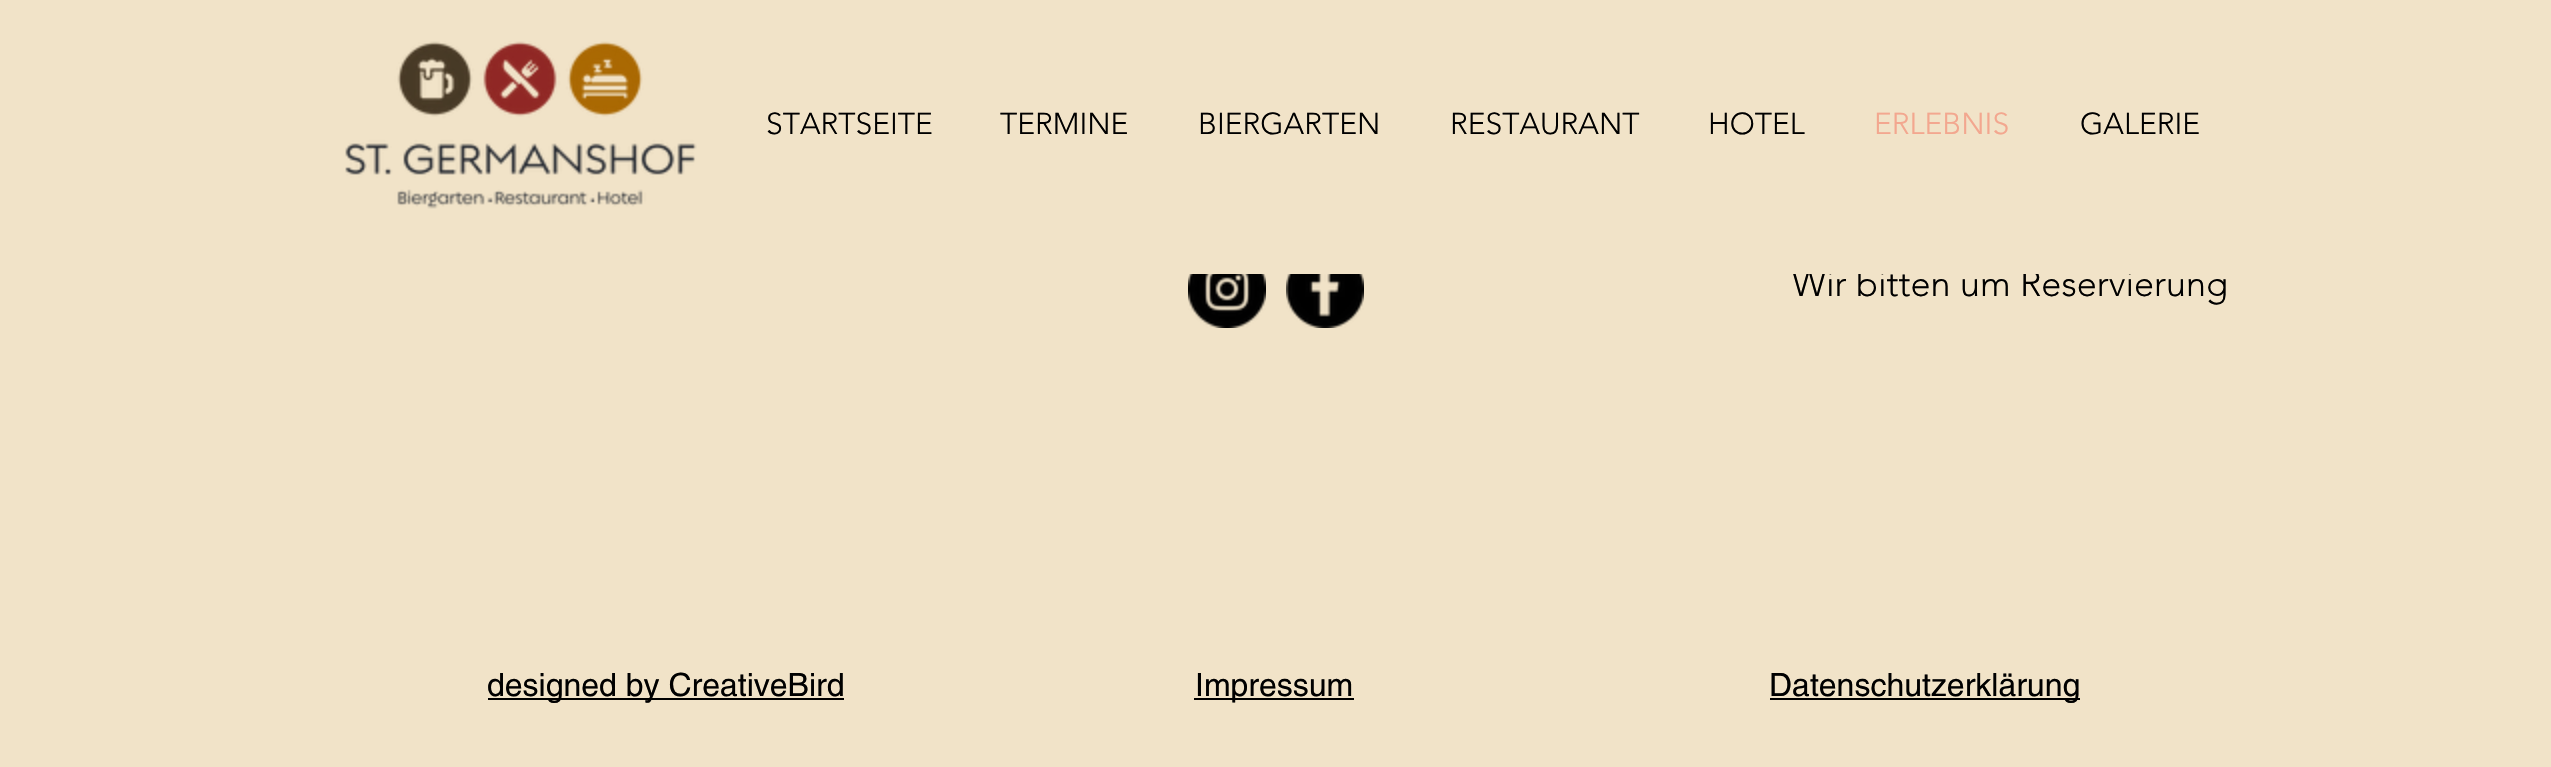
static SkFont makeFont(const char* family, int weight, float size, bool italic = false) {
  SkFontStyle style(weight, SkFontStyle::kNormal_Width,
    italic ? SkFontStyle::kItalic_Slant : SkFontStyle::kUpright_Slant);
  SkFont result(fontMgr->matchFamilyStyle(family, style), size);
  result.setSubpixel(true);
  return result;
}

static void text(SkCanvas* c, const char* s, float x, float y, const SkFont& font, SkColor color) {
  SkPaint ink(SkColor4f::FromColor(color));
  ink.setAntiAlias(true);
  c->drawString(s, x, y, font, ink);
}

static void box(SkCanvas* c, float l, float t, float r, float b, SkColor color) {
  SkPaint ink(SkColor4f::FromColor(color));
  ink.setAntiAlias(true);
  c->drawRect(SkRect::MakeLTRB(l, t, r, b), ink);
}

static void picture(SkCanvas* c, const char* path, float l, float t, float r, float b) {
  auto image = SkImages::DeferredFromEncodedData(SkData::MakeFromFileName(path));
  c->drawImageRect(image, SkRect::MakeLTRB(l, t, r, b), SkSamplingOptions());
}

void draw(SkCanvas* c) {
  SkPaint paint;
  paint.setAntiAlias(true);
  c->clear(0xfff1e3c8);
  picture(c, "img_01.png", 345, 41, 697, 209);
  SkFont face1 = makeFont("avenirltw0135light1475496", 300, 30);
  text(c, "STARTSEITE", 766, 134, face1, 0xff000000);
  text(c, "TERMINE", 1000, 134, face1, 0xff000000);
  text(c, "BIERGARTEN", 1198, 134, face1, 0xff000000);
  text(c, "RESTAURANT", 1450, 134, face1, 0xff000000);
  text(c, "HOTEL", 1708, 134, face1, 0xff000000);
  text(c, "ERLEBNIS", 1874, 134, face1, 0xfff3a78f);
  text(c, "GALERIE", 2080, 134, face1, 0xff000000);
  SkFont face2 = makeFont("avenirltw0135light1475496", 300, 36);
  text(c, "Wir bitten um Reservierung", 1792, 296, face2, 0xff000000);
  box(c, 1792, 268, 2132, 274, 0xfff1e3c8);
  picture(c, "img_02.png", 1188, 274, 1266, 328);
  picture(c, "img_03.png", 1286, 274, 1364, 328);
  box(c, 488, 698, 844, 700, 0xff000000);
  SkFont face3 = makeFont("helvetica", 400, 32);
  text(c, "designed by CreativeBird", 487, 696, face3, 0xff000000);
  box(c, 1194, 698, 1354, 700, 0xff000000);
  text(c, "Impressum", 1195, 696, face3, 0xff000000);
  box(c, 1770, 698, 2080, 700, 0xff000000);
  text(c, "Datenschutzerklärung", 1769, 696, face3, 0xff000000);
}
